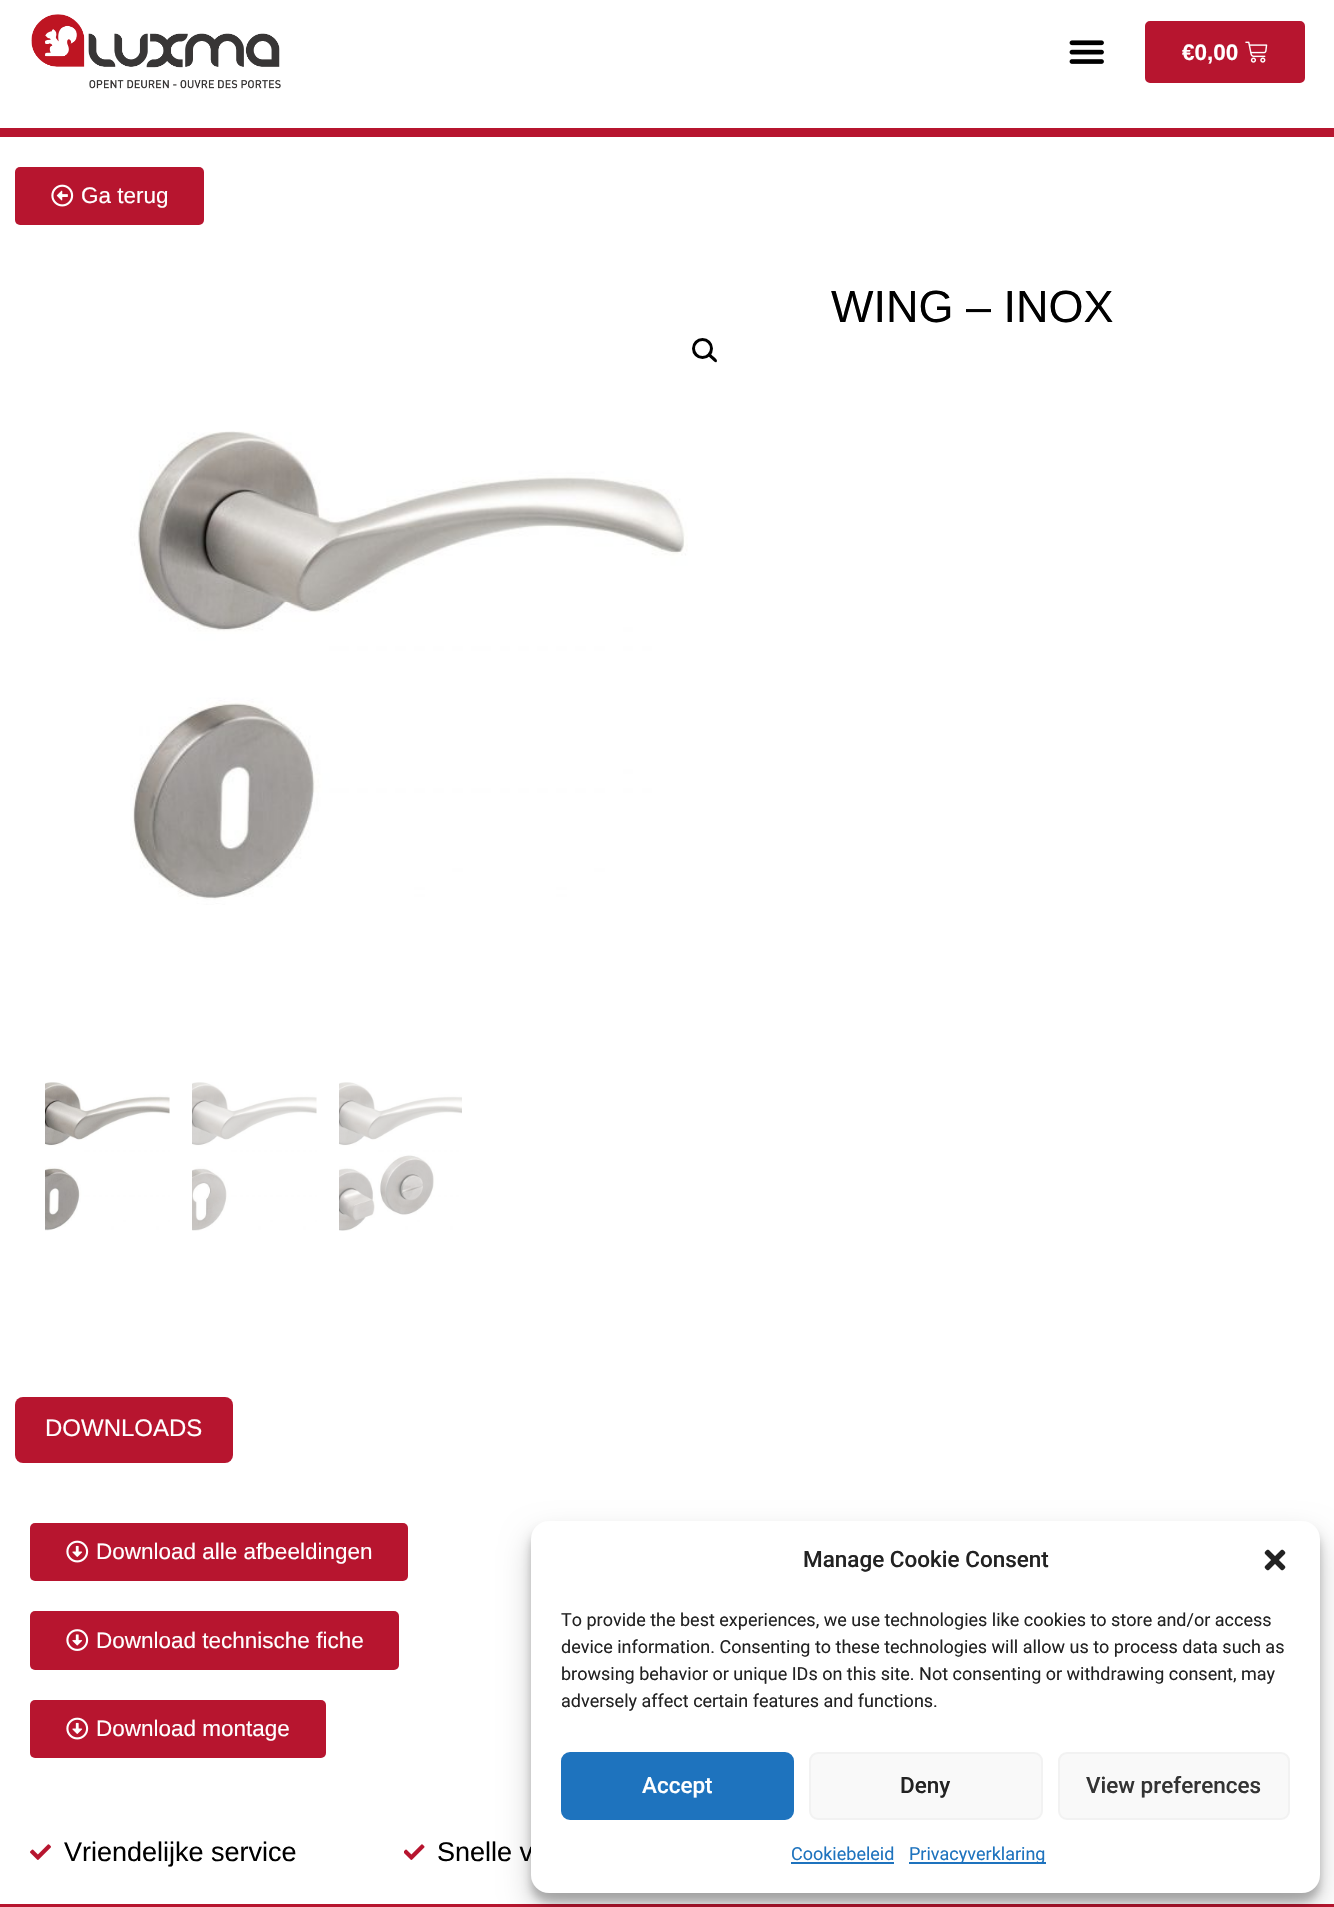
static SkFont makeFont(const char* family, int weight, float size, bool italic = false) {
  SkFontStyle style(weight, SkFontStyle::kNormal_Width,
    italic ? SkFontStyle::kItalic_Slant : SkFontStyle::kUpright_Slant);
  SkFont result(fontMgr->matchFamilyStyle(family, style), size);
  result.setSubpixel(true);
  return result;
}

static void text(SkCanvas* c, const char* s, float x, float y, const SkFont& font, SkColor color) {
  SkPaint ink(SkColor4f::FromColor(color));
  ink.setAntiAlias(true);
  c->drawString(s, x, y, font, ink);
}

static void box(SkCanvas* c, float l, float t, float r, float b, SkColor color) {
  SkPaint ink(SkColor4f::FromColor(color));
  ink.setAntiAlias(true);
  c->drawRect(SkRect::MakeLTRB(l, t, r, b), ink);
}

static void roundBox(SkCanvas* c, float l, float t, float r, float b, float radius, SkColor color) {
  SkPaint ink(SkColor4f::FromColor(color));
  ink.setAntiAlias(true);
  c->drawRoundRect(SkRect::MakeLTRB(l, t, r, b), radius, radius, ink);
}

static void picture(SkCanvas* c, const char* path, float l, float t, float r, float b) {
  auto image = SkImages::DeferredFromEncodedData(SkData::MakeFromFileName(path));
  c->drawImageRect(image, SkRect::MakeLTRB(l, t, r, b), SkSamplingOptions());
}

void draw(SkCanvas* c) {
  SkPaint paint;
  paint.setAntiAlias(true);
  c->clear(0xffffffff);
  box(c, 0, 128, 1334, 137, 0xffb7152f);
  picture(c, "img_01.png", 31, 14, 281, 89);
  picture(c, "img_02.png", 1069, 40, 1104, 64);
  paint.setColor(0xffb7152f);
  c->drawRoundRect(SkRect::MakeLTRB(1146, 22, 1304, 82), 4, 4, paint);
  paint.setStyle(SkPaint::kStroke_Style);
  paint.setStrokeWidth(2);
  c->drawRoundRect(SkRect::MakeLTRB(1146, 22, 1304, 82), 4, 4, paint);
  SkFont face1 = makeFont("Liberation Sans", 700, 22.5f);
  text(c, "€0,00", 1182, 60, face1, 0xffffffff);
  picture(c, "img_03.png", 1245, 41, 1268, 63);
  roundBox(c, 15, 167, 204, 225, 5, 0xffb7152f);
  picture(c, "img_04.png", 51, 184, 74, 207);
  SkFont face2 = makeFont("Liberation Sans", 400, 22.5f);
  text(c, "Ga terug", 81, 203, face2, 0xffffffff);
  SkFont face3 = makeFont("Liberation Sans", 400, 45);
  text(c, "WING – INOX", 831, 322, face3, 0xff000000);
  paint.setStrokeWidth(3);
  paint.setColor(0xff000000);
  c->drawCircle(702.5f, 348.5f, 9, paint);
  paint.setStyle(SkPaint::kFill_Style);
  c->drawPath(SkPathBuilder().moveTo(708.5f, 353.5f).cubicTo(710, 352, 712.5f, 356, 713.5f, 356.5f).cubicTo(714.5f, 357.5f, 718.5f, 360.5f, 716.5f, 362).cubicTo(715, 363.5f, 712.5f, 359.5f, 711.5f, 359).cubicTo(710.5f, 358, 706.5f, 355, 708.5f, 353.5f).close().detach(), paint);
  picture(c, "img_05.png", 130, 431, 688, 905);
  picture(c, "img_06.png", 45, 1082, 170, 1231);
  picture(c, "img_07.png", 192, 1082, 317, 1231);
  picture(c, "img_08.png", 339, 1082, 462, 1231);
  roundBox(c, 15, 1397, 233, 1463, 8, 0xffb7152f);
  SkFont face4 = makeFont("Liberation Sans", 400, 24);
  text(c, "DOWNLOADS", 45, 1436, face4, 0xffffffff);
  roundBox(c, 30, 1523, 408, 1581, 5, 0xffb7152f);
  picture(c, "img_09.png", 66, 1540, 89, 1563);
  text(c, "Download alle afbeeldingen", 96, 1559, face2, 0xffffffff);
  roundBox(c, 30, 1611, 399, 1670, 5, 0xffb7152f);
  picture(c, "img_10.png", 66, 1629, 89, 1651);
  text(c, "Download technische fiche", 96, 1648, face2, 0xffffffff);
  roundBox(c, 30, 1700, 326, 1758, 5, 0xffb7152f);
  picture(c, "img_09.png", 66, 1717, 89, 1740);
  text(c, "Download montage", 96, 1736, face2, 0xffffffff);
  picture(c, "img_11.png", 30, 1844, 51, 1860);
  SkFont face5 = makeFont("Liberation Sans", 400, 27);
  text(c, "Vriendelijke service", 64, 1861, face5, 0xff000000);
  picture(c, "img_12.png", 404, 1844, 425, 1860);
  text(c, "Snelle v", 437, 1861, face5, 0xff000000);
  box(c, 0, 1904, 1334, 1907, 0xffb7152f);
  paint.setColor(0x3b000000);
  paint.setMaskFilter(SkMaskFilter::MakeBlur(kNormal_SkBlurStyle, 4.5f));
  c->drawRoundRect(SkRect::MakeLTRB(531, 1530, 1320, 1902), 18, 18, paint);
  paint.setMaskFilter(nullptr);
  paint.setColor(0x30000000);
  paint.setMaskFilter(SkMaskFilter::MakeBlur(kNormal_SkBlurStyle, 15));
  c->drawRoundRect(SkRect::MakeLTRB(531, 1536, 1320, 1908), 18, 18, paint);
  paint.setMaskFilter(nullptr);
  roundBox(c, 531, 1521, 1320, 1893, 18, 0xffffffff);
  SkFont face6 = makeFont("Roboto", 500, 22.5f);
  text(c, "Manage Cookie Consent", 803, 1567, face6, 0xff222222);
  picture(c, "img_13.png", 1264, 1549, 1286, 1571);
  SkFont face7 = makeFont("Roboto", 400, 18);
  text(c, "To provide the best experiences, we use technologies like cookies to store and/or access", 561, 1626, face7, 0xff222222);
  text(c, "device information. Consenting to these technologies will allow us to process data such as", 561, 1653, face7, 0xff222222);
  text(c, "browsing behavior or unique IDs on this site. Not consenting or withdrawing consent, may", 561, 1680, face7, 0xff222222);
  text(c, "adversely affect certain features and functions.", 561, 1707, face7, 0xff222222);
  paint.setColor(0xff1e73be);
  c->drawRoundRect(SkRect::MakeLTRB(562, 1753, 793, 1819), 8, 8, paint);
  paint.setStyle(SkPaint::kStroke_Style);
  paint.setStrokeWidth(2);
  c->drawRoundRect(SkRect::MakeLTRB(562, 1753, 793, 1819), 8, 8, paint);
  text(c, "Accept", 642, 1793, face6, 0xffffffff);
  paint.setStyle(SkPaint::kFill_Style);
  paint.setColor(0xfff9f9f9);
  c->drawRoundRect(SkRect::MakeLTRB(810, 1753, 1042, 1819), 8, 8, paint);
  paint.setStyle(SkPaint::kStroke_Style);
  paint.setColor(0xfff2f2f2);
  c->drawRoundRect(SkRect::MakeLTRB(810, 1753, 1042, 1819), 8, 8, paint);
  text(c, "Deny", 900, 1793, face6, 0xff222222);
  paint.setStyle(SkPaint::kFill_Style);
  paint.setColor(0xfff9f9f9);
  c->drawRoundRect(SkRect::MakeLTRB(1059, 1753, 1289, 1819), 8, 8, paint);
  paint.setStyle(SkPaint::kStroke_Style);
  paint.setColor(0xfff2f2f2);
  c->drawRoundRect(SkRect::MakeLTRB(1059, 1753, 1289, 1819), 8, 8, paint);
  text(c, "View preferences", 1086, 1793, face6, 0xff333333);
  text(c, "Cookiebeleid", 791, 1860, face7, 0xff1e73be);
  box(c, 791, 1862, 894, 1864, 0xff1e73be);
  box(c, 909, 1862, 1046, 1864, 0xff1e73be);
  text(c, "Privacyverklaring", 909, 1860, face7, 0xff1e73be);
}
